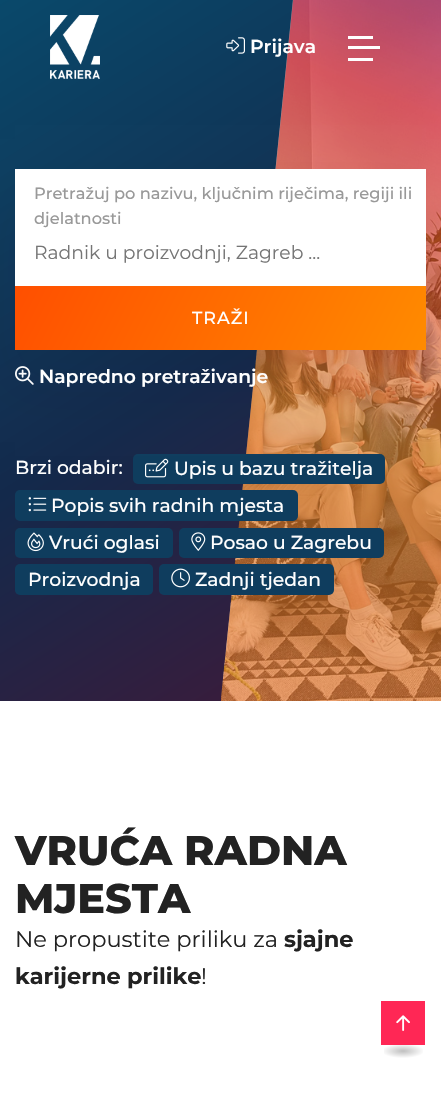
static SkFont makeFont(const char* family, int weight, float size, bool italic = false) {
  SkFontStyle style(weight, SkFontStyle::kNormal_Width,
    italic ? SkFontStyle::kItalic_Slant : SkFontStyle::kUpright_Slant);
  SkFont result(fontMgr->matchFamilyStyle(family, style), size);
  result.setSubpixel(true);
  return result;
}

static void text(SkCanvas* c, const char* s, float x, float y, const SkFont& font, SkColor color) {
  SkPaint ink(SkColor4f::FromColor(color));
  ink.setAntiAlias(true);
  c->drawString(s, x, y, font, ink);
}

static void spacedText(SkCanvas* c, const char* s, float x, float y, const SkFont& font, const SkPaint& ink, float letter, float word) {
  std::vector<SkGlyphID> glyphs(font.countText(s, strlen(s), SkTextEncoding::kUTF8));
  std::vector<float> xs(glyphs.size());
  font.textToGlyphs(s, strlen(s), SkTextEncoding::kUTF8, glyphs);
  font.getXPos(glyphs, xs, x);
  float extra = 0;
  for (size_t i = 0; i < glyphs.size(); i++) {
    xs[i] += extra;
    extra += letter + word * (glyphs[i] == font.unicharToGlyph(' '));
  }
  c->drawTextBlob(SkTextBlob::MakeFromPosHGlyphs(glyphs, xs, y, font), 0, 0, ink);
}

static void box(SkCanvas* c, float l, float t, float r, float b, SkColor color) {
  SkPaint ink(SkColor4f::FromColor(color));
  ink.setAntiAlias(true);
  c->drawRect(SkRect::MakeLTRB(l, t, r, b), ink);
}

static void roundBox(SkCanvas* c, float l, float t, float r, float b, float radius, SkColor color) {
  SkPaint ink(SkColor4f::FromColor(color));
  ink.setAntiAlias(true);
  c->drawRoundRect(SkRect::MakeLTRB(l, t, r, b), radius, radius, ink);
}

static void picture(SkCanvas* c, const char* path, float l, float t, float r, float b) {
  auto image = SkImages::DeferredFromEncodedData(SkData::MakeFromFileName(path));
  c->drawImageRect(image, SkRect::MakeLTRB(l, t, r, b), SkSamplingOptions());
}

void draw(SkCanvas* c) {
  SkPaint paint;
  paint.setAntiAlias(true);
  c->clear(0xffffffff);
  {
    const SkColor colors[] = {0xff094a6c, 0xff13294b, 0xff451837};
    const float stops[] = {0, 0.52f, 1};
    const SkPoint ends[] = {{-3.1f, -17}, {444, 699}};
    paint.setShader(SkGradientShader::MakeLinear(ends, colors, stops, 3, SkTileMode::kClamp));
    paint.setAlpha(255);
  }
  c->drawRect(SkRect::MakeLTRB(0, 0, 441, 701), paint);
  picture(c, "img_01.png", 50, 15, 100, 79);
  picture(c, "img_03.png", 221, 0, 441, 701);
  {
    const SkColor colors[] = {0x8fb70962, 0x8ffe131e, 0x8fff9628, 0x8fff7e28};
    const float stops[] = {0, 0.19f, 0.6f, 1};
    const SkPoint ends[] = {{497, -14}, {210, 697}};
    paint.setShader(SkGradientShader::MakeLinear(ends, colors, stops, 4, SkTileMode::kClamp));
    paint.setAlpha(255);
  }
  c->drawPath(SkPathBuilder().moveTo(295, -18).lineTo(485, -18).lineTo(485, 701).lineTo(221, 701).lineTo(221, 698).close().detach(), paint);
  picture(c, "img_02.png", 226, 37, 245, 54);
  SkFont face1 = makeFont("Montserrat", 600, 18.75f);
  text(c, "Prijava", 250, 53, face1, 0xffffffff);
  box(c, 348, 36, 373, 39, 0xffffffff);
  box(c, 348, 46, 380, 49, 0xffffffff);
  box(c, 348, 58, 373, 61, 0xffffffff);
  picture(c, "img_04.png", 15, 366, 34, 385);
  roundBox(c, 133, 454, 385, 484, 5, 0xff0f3d5e);
  paint.setShader(nullptr);
  paint.setColor(0x0f132338);
  paint.setMaskFilter(SkMaskFilter::MakeBlur(kNormal_SkBlurStyle, 25));
  c->drawRect(SkRect::MakeLTRB(15, 200, 426, 381), paint);
  paint.setMaskFilter(nullptr);
  box(c, 15, 169, 426, 286, 0xffffffff);
  SkFont face2 = makeFont("Montserrat", 500, 16.25f);
  text(c, "Pretražuj po nazivu, ključnim riječima, regiji ili", 34, 199, face2, 0xff999999);
  text(c, "djelatnosti", 34, 224, face2, 0xff999999);
  SkFont face3 = makeFont("Montserrat", 400, 18.75f);
  text(c, "Radnik u proizvodnji, Zagreb ...", 34, 259, face3, 0xff757575);
  {
    const SkColor colors[] = {0xffff4f00, 0xffff8b00};
    const float stops[] = {0, 1};
    const SkPoint ends[] = {{44, 228}, {397, 408}};
    paint.setShader(SkGradientShader::MakeLinear(ends, colors, stops, 2, SkTileMode::kClamp));
    paint.setAlpha(255);
  }
  c->drawRect(SkRect::MakeLTRB(15, 286, 426, 350), paint);
  SkFont face4 = makeFont("Montserrat", 500, 17.5f);
  paint.setShader(nullptr);
  paint.setColor(0xffffffff);
  spacedText(c, "TRAŽI", 192, 324, face4, paint, 1, 0);
  text(c, "Napredno pretraživanje", 39, 383, face1, 0xffffffff);
  SkFont face5 = makeFont("Montserrat", 500, 18.75f);
  text(c, "Brzi odabir:", 15, 474, face5, 0xffffffff);
  picture(c, "img_05.png", 145, 458, 169, 478);
  text(c, "Upis u bazu tražitelja", 174, 475, face5, 0xffffffff);
  roundBox(c, 15, 490, 298, 521, 5, 0xff0f3d5e);
  picture(c, "img_06.png", 28, 497, 47, 512);
  text(c, "Popis svih radnih mjesta", 51, 512, face5, 0xffffffff);
  roundBox(c, 15, 528, 173, 558, 5, 0xff0f3d5e);
  picture(c, "img_07.png", 27, 532, 44, 552);
  text(c, "Vrući oglasi", 49, 549, face5, 0xffffffff);
  roundBox(c, 179, 528, 384, 558, 5, 0xff0f3d5e);
  picture(c, "img_08.png", 191, 532, 206, 551);
  text(c, "Posao u Zagrebu", 210, 549, face5, 0xffffffff);
  roundBox(c, 15, 564, 153, 595, 5, 0xff0f3d5e);
  text(c, "Proizvodnja", 28, 586, face5, 0xffffffff);
  roundBox(c, 159, 564, 334, 595, 5, 0xff0f3d5e);
  picture(c, "img_09.png", 171, 568, 190, 588);
  text(c, "Zadnji tjedan", 195, 586, face5, 0xffffffff);
  SkFont face6 = makeFont("Montserrat", 800, 41.25f);
  text(c, "VRUĆA RADNA", 15, 865, face6, 0xff222222);
  text(c, "MJESTA", 15, 913, face6, 0xff222222);
  SkFont face7 = makeFont("Montserrat", 400, 22.5f);
  text(c, "Ne propustite priliku za", 15, 947, face7, 0xff222222);
  SkFont face8 = makeFont("Montserrat", 700, 22.5f);
  text(c, "sjajne", 284, 947, face8, 0xff222222);
  text(c, "karijerne prilike", 15, 984, face8, 0xff222222);
  text(c, "!", 201, 984, face7, 0xff222222);
  box(c, 381, 1001, 425, 1045, 0xffff2755);
  picture(c, "img_10.png", 396, 1015, 410, 1031);
  {
    const SkColor colors[] = {0xffbfbfbf, 0xffffffff};
    const float stops[] = {0, 0.8f};
    SkMatrix m = SkMatrix::Translate(403, 1051).preScale(27, 9);
    paint.setShader(SkGradientShader::MakeRadial({0, 0}, 1, colors, stops, 2, SkTileMode::kClamp, 0, &m));
    paint.setAlpha(255);
  }
  c->drawRect(SkRect::MakeLTRB(384, 1045, 423, 1058), paint);
}
